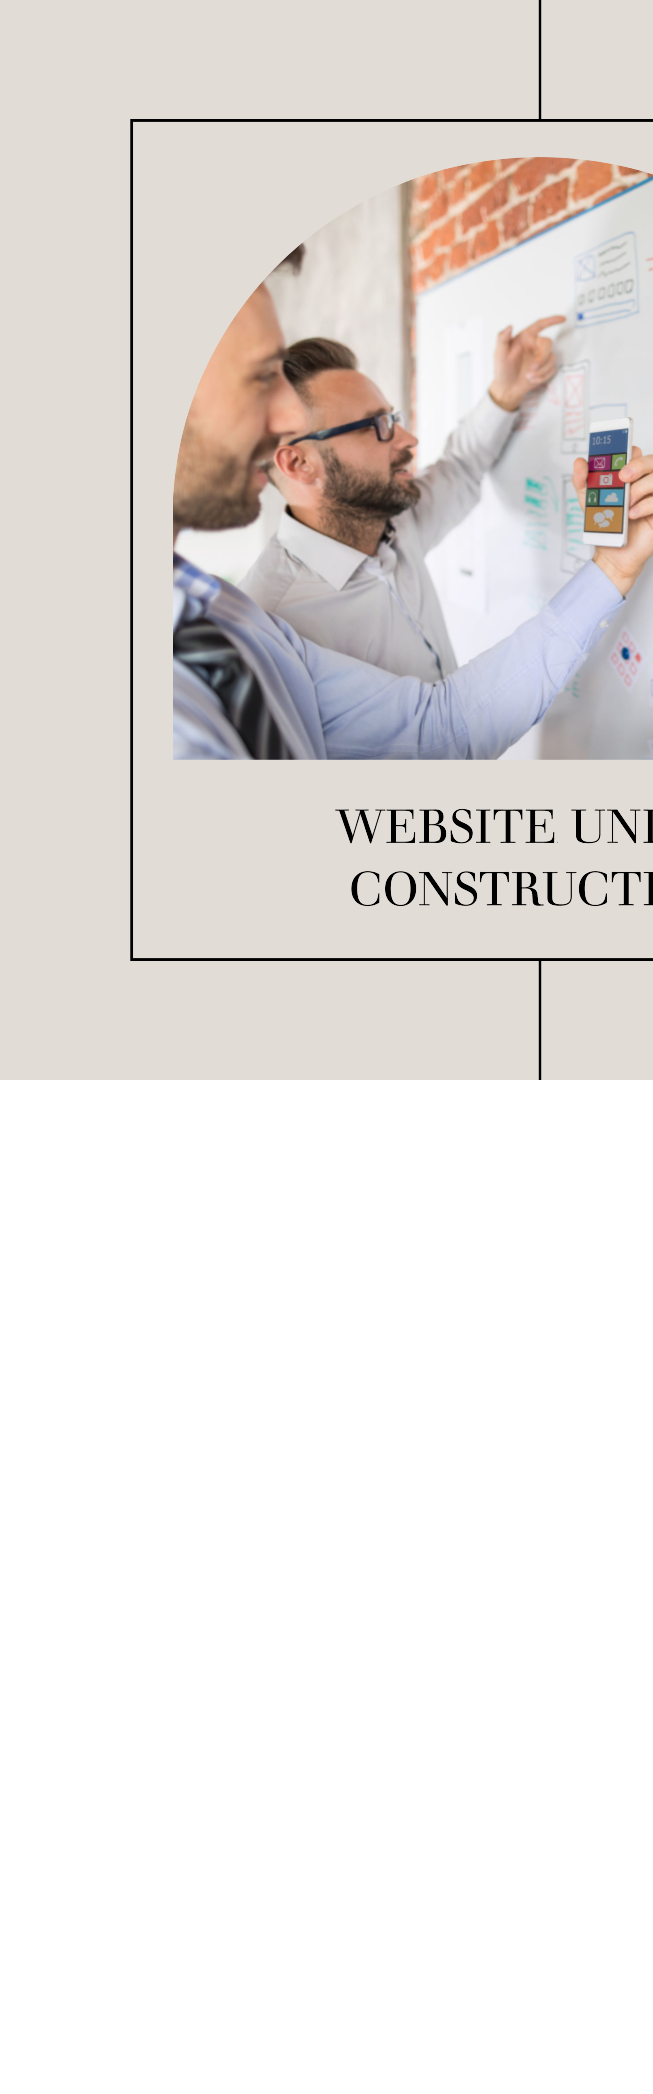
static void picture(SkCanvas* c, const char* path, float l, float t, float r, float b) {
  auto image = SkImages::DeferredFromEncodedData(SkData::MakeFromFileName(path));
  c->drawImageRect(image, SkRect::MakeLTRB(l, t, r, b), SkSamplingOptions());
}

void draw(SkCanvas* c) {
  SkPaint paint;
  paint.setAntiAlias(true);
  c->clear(0xffffffff);
  picture(c, "img_01.png", 0, 0, 653, 1080);
}
